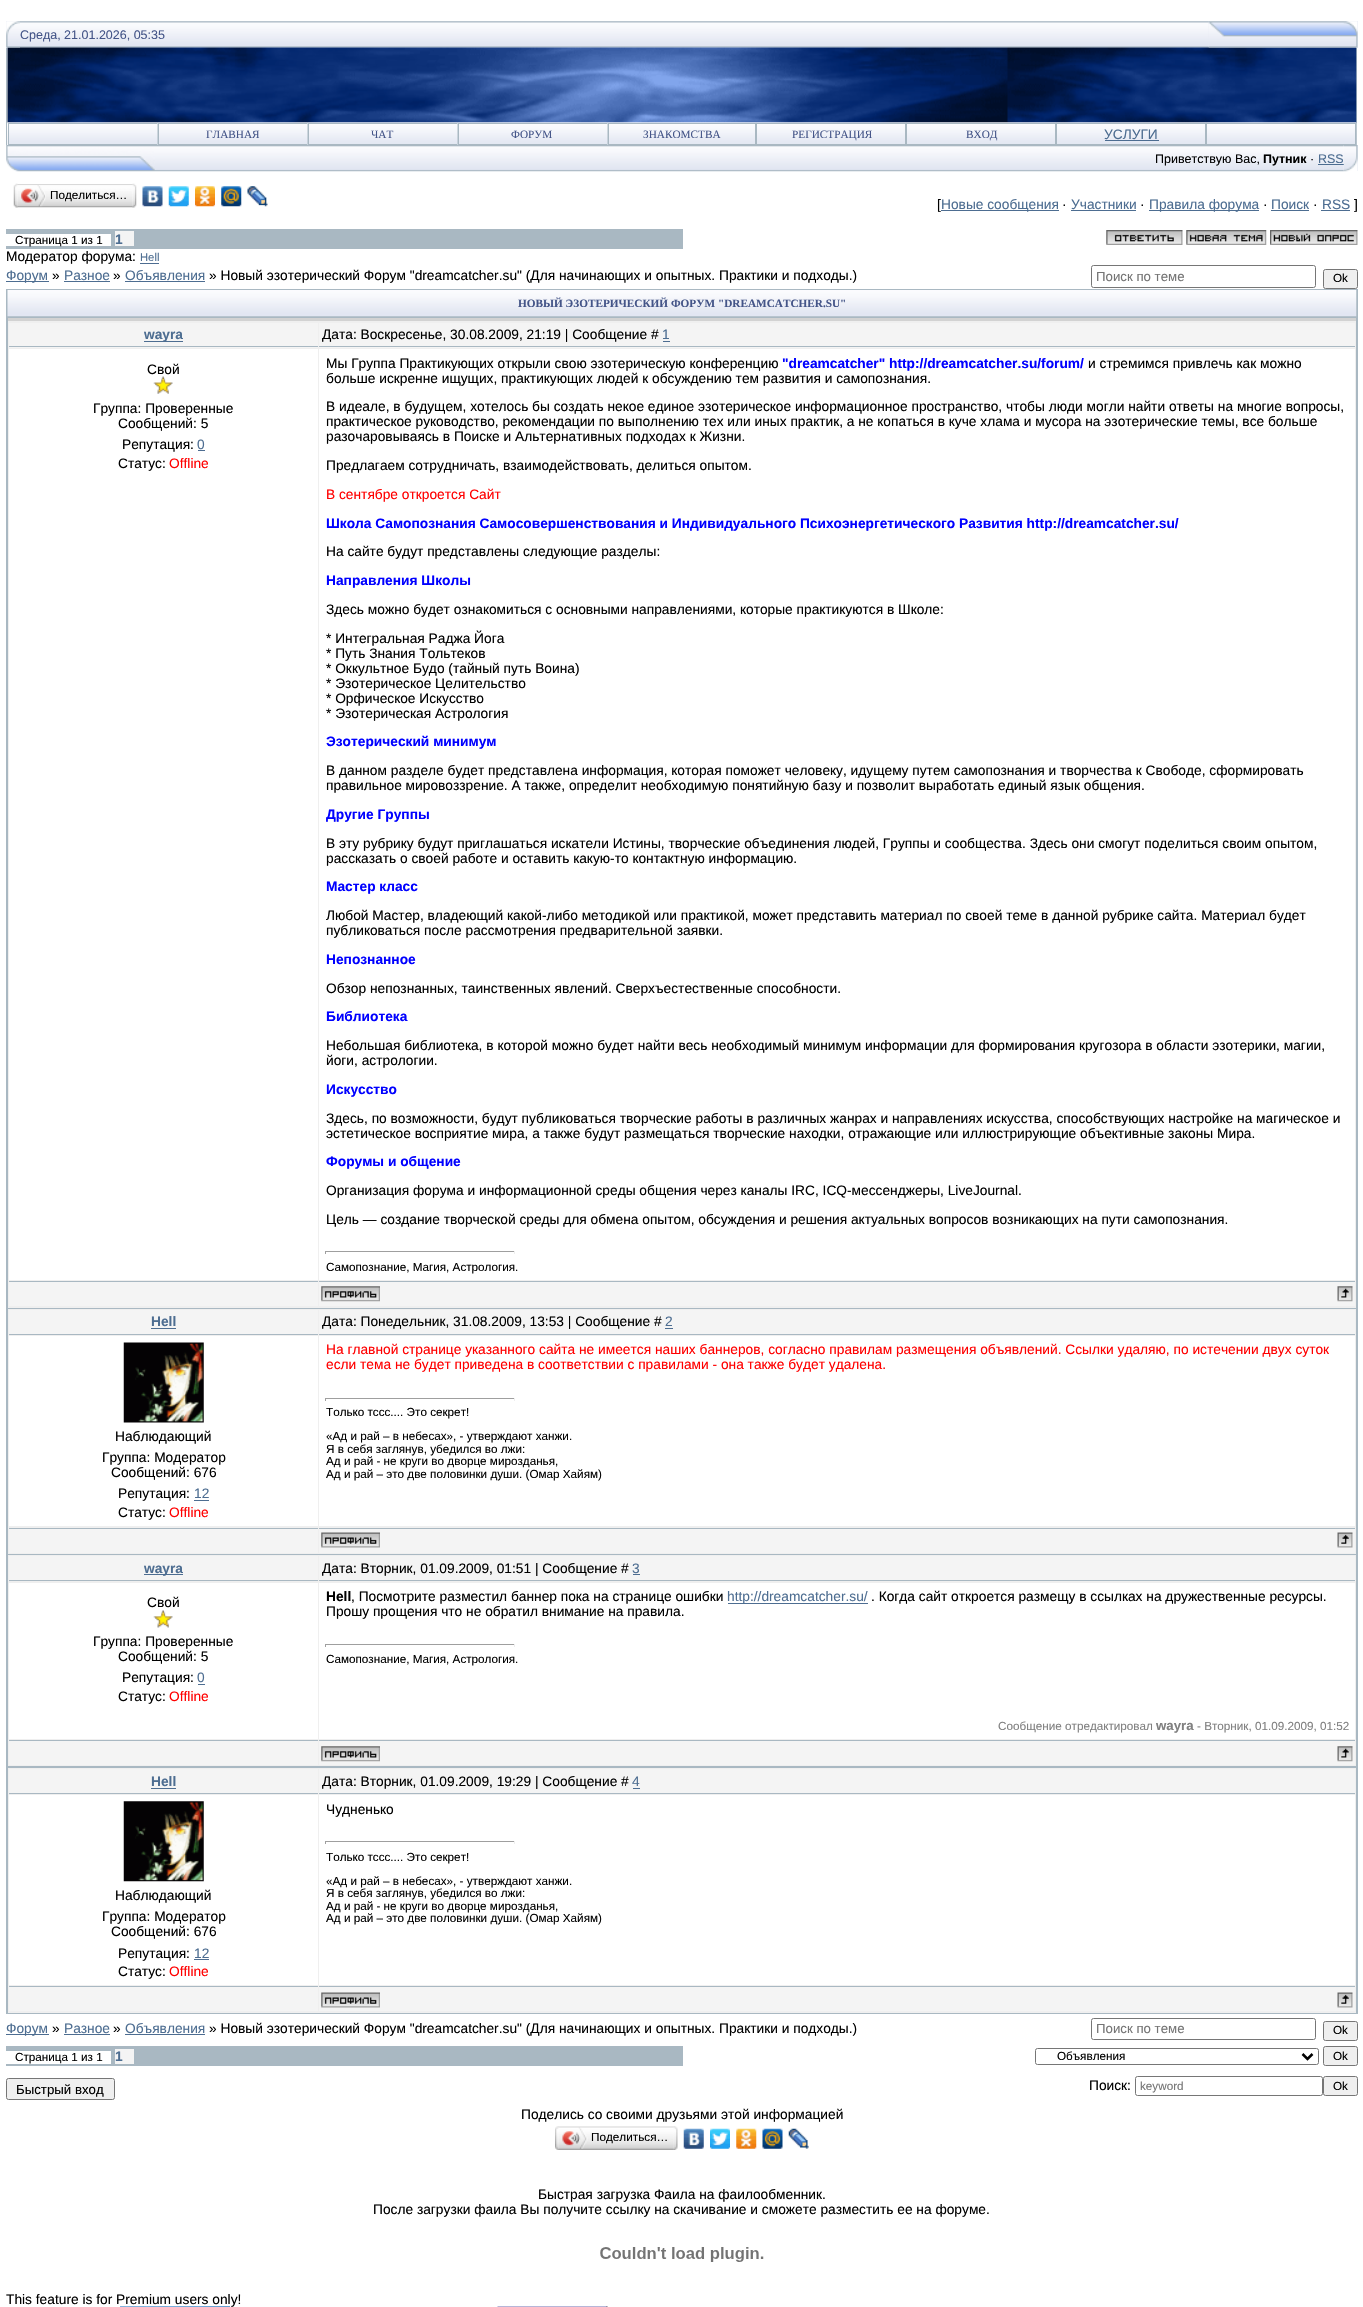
static SkFont makeFont(const char* family, int weight, float size, bool italic = false) {
  SkFontStyle style(weight, SkFontStyle::kNormal_Width,
    italic ? SkFontStyle::kItalic_Slant : SkFontStyle::kUpright_Slant);
  SkFont result(fontMgr->matchFamilyStyle(family, style), size);
  result.setSubpixel(true);
  return result;
}

static void text(SkCanvas* c, const char* s, float x, float y, const SkFont& font, SkColor color) {
  SkPaint ink(SkColor4f::FromColor(color));
  ink.setAntiAlias(true);
  c->drawString(s, x, y, font, ink);
}

static void box(SkCanvas* c, float l, float t, float r, float b, SkColor color) {
  SkPaint ink(SkColor4f::FromColor(color));
  ink.setAntiAlias(true);
  c->drawRect(SkRect::MakeLTRB(l, t, r, b), ink);
}

static void picture(SkCanvas* c, const char* path, float l, float t, float r, float b) {
  auto image = SkImages::DeferredFromEncodedData(SkData::MakeFromFileName(path));
  c->drawImageRect(image, SkRect::MakeLTRB(l, t, r, b), SkSamplingOptions());
}

void draw(SkCanvas* c) {
  SkPaint paint;
  paint.setAntiAlias(true);
  c->clear(0xffffffff);
  box(c, 6, 21, 1358, 48, 0xffe4e8f3);
  picture(c, "img_02.png", 20, 21, 1209, 48);
  box(c, 1356, 48, 1357, 145, 0xffa9b8c2);
  picture(c, "img_04.png", 7, 47, 1357, 123);
  picture(c, "img_01.png", 6, 21, 20, 48);
  SkFont face1 = makeFont("Liberation Sans", 400, 12.5f);
  text(c, "Среда, 21.01.2026, 05:35", 20, 39, face1, 0xff445588);
  picture(c, "img_03.png", 1208, 21, 1358, 48);
  box(c, 6, 48, 7, 145, 0xffa9b8c2);
  picture(c, "img_05.png", 7, 122, 158, 145);
  paint.setStyle(SkPaint::kStroke_Style);
  paint.setStrokeWidth(1);
  paint.setColor(0xffa9b8c2);
  c->drawRect(SkRect::MakeLTRB(8.5f, 123.5f, 157.5f, 144.5f), paint);
  picture(c, "img_06.png", 157, 122, 308, 145);
  c->drawRect(SkRect::MakeLTRB(158.5f, 123.5f, 307.5f, 144.5f), paint);
  SkFont face2 = makeFont("Liberation Serif", 400, 11.25f);
  text(c, "ГЛАВНАЯ", 206, 138, face2, 0xff445588);
  picture(c, "img_07.png", 307, 122, 458, 145);
  c->drawRect(SkRect::MakeLTRB(308.5f, 123.5f, 457.5f, 144.5f), paint);
  text(c, "ЧАТ", 371, 138, face2, 0xff445588);
  picture(c, "img_08.png", 457, 122, 608, 145);
  c->drawRect(SkRect::MakeLTRB(458.5f, 123.5f, 607.5f, 144.5f), paint);
  text(c, "ФОРУМ", 511, 138, face2, 0xff445588);
  picture(c, "img_09.png", 607, 122, 757, 145);
  c->drawRect(SkRect::MakeLTRB(608.5f, 123.5f, 755.5f, 144.5f), paint);
  text(c, "ЗНАКОМСТВА", 643, 138, face2, 0xff445588);
  picture(c, "img_10.png", 756, 122, 907, 144);
  c->drawRect(SkRect::MakeLTRB(756.5f, 123.5f, 905.5f, 144.5f), paint);
  text(c, "РЕГИСТРАЦИЯ", 792, 138, face2, 0xff445588);
  picture(c, "img_11.png", 906, 122, 1057, 144);
  c->drawRect(SkRect::MakeLTRB(906.5f, 123.5f, 1055.5f, 144.5f), paint);
  text(c, "ВХОД", 966, 138, face2, 0xff445588);
  picture(c, "img_12.png", 1056, 122, 1207, 144);
  c->drawRect(SkRect::MakeLTRB(1056.5f, 123.5f, 1205.5f, 144.5f), paint);
  SkFont face3 = makeFont("Liberation Sans", 400, 13.75f);
  text(c, "УСЛУГИ", 1104, 139, face3, 0xff4d6d91);
  box(c, 1105, 140, 1159, 141, 0xff4d6d91);
  picture(c, "img_13.png", 1206, 122, 1357, 145);
  c->drawRect(SkRect::MakeLTRB(1206.5f, 123.5f, 1355.5f, 144.5f), paint);
  picture(c, "img_14.png", 6, 145, 155, 172);
  picture(c, "img_15.png", 155, 145, 1344, 172);
  text(c, "Приветствую Вас,", 1155, 163, face1, 0xff000000);
  SkFont face4 = makeFont("Liberation Sans", 700, 12.5f);
  text(c, "Путник", 1263, 163, face4, 0xff000000);
  text(c, "·", 1310, 163, face1, 0xff000000);
  text(c, "RSS", 1318, 163, face1, 0xff4d6d91);
  box(c, 1318, 164, 1344, 165, 0xff4d6d91);
  box(c, 1357, 145, 1358, 171, 0xffe4e8f3);
  picture(c, "img_16.png", 1343, 145, 1358, 172);
  picture(c, "img_17.png", 17, 184, 133, 208);
  picture(c, "img_18.png", 13, 183, 18, 208);
  picture(c, "img_19.png", 21, 185, 46, 207);
  SkFont face5 = makeFont("Liberation Sans", 400, 11.75f);
  text(c, "Поделиться…", 50, 199, face5, 0xff000000);
  picture(c, "img_20.png", 132, 183, 137, 208);
  picture(c, "img_21.png", 142, 186, 163, 207);
  picture(c, "img_22.png", 168, 186, 189, 207);
  picture(c, "img_23.png", 195, 186, 215, 207);
  picture(c, "img_24.png", 221, 186, 242, 207);
  picture(c, "img_25.png", 247, 186, 268, 207);
  text(c, "[", 937, 209, face3, 0xff000000);
  box(c, 941, 210, 1059, 211, 0xff4d6d91);
  text(c, "Новые сообщения", 941, 209, face3, 0xff4d6d91);
  text(c, "·", 1062, 209, face3, 0xff000000);
  text(c, "Участники", 1071, 209, face3, 0xff4d6d91);
  box(c, 1071, 210, 1136, 211, 0xff4d6d91);
  text(c, "·", 1140, 209, face3, 0xff000000);
  box(c, 1149, 210, 1259, 211, 0xff4d6d91);
  text(c, "Правила форума", 1149, 209, face3, 0xff4d6d91);
  text(c, "·", 1263, 209, face3, 0xff000000);
  text(c, "Поиск", 1271, 209, face3, 0xff4d6d91);
  box(c, 1271, 210, 1309, 211, 0xff4d6d91);
  text(c, "·", 1313, 209, face3, 0xff000000);
  text(c, "RSS", 1322, 209, face3, 0xff4d6d91);
  box(c, 1321, 210, 1350, 211, 0xff4d6d91);
  text(c, "]", 1354, 209, face3, 0xff000000);
  box(c, 6, 229, 683, 249, 0xffa9b8c2);
  box(c, 6, 234, 111, 246, 0xffffffff);
  SkFont face6 = makeFont("Liberation Sans", 400, 11.7f);
  text(c, "Страница 1 из 1", 15, 244, face6, 0xff000000);
  box(c, 115, 231, 134, 246, 0xfff4f4f4);
  SkFont face7 = makeFont("Liberation Sans", 700, 13.75f);
  text(c, "1", 115, 244, face7, 0xff4d6d91);
  picture(c, "img_26.png", 1106, 230, 1183, 245);
  picture(c, "img_27.png", 1186, 230, 1267, 245);
  picture(c, "img_28.png", 1270, 230, 1358, 245);
  text(c, "Модератор форума:", 6, 261, face3, 0xff000000);
  SkFont face8 = makeFont("Liberation Sans", 400, 11.25f);
  text(c, "Hell", 140, 261, face8, 0xff4d6d91);
  box(c, 140, 263, 159, 264, 0xff4d6d91);
  box(c, 6, 281, 49, 282, 0xff4d6d91);
  text(c, "Форум", 6, 280, face3, 0xff4d6d91);
  text(c, "»", 52, 280, face3, 0xff000000);
  text(c, "Разное", 64, 280, face3, 0xff4d6d91);
  box(c, 64, 281, 110, 282, 0xff4d6d91);
  text(c, "»", 113, 280, face3, 0xff000000);
  text(c, "Объявления", 125, 280, face3, 0xff4d6d91);
  box(c, 125, 281, 205, 282, 0xff4d6d91);
  text(c, "» Новый эзотерический Форум \"dreamcatcher.su\" (Для начинающих и опытных. Практики и подходы.)", 209, 280, face3, 0xff000000);
  paint.setColor(0xff767676);
  c->drawRoundRect(SkRect::MakeLTRB(1091.5f, 265.5f, 1315.5f, 287.5f), 2, 2, paint);
  SkFont face9 = makeFont("Liberation Sans", 400, 13.25f);
  text(c, "Поиск по теме", 1096, 281, face9, 0xff757575);
  paint.setStyle(SkPaint::kFill_Style);
  paint.setColor(0xffefefef);
  c->drawRoundRect(SkRect::MakeLTRB(1323.5f, 269.5f, 1357.5f, 288.5f), 2, 2, paint);
  paint.setStyle(SkPaint::kStroke_Style);
  paint.setColor(0xff767676);
  c->drawRoundRect(SkRect::MakeLTRB(1323.5f, 269.5f, 1357.5f, 288.5f), 2, 2, paint);
  text(c, "Ok", 1333, 282, face6, 0xff000000);
  box(c, 6, 289, 1358, 2014, 0xffa9b8c2);
  picture(c, "img_29.png", 7, 290, 1357, 317);
  SkFont face10 = makeFont("Liberation Serif", 700, 11.25f);
  text(c, "НОВЫЙ ЭЗОТЕРИЧЕСКИЙ ФОРУМ \"DREAMCATCHER.SU\"", 518, 307, face10, 0xff445588);
  box(c, 8, 318, 1356, 321, 0xffd2d2d2);
  box(c, 8, 321, 1356, 1308, 0xffefefef);
  box(c, 9, 323, 318, 348, 0xfff4f4f4);
  box(c, 9, 346, 318, 347, 0xffa9b8c2);
  box(c, 144, 341, 183, 342, 0xff4d6d91);
  text(c, "wayra", 144, 339, face7, 0xff4d6d91);
  box(c, 319, 323, 1355, 348, 0xfff4f4f4);
  box(c, 319, 346, 1355, 347, 0xffa9b8c2);
  text(c, "Дата: Воскресенье, 30.08.2009, 21:19 | Сообщение #", 322, 339, face3, 0xff000000);
  text(c, "1", 662, 339, face3, 0xff4d6d91);
  box(c, 663, 341, 670, 342, 0xff4d6d91);
  box(c, 9, 349, 318, 1280, 0xffffffff);
  text(c, "Свой", 147, 374, face3, 0xff000000);
  picture(c, "img_30.png", 153, 376, 173, 394);
  text(c, "Группа: Проверенные", 93, 413, face3, 0xff000000);
  text(c, "Сообщений: 5", 118, 428, face3, 0xff000000);
  text(c, "Репутация:", 122, 449, face3, 0xff000000);
  text(c, "0", 197, 449, face3, 0xff4d6d91);
  box(c, 198, 450, 205, 451, 0xff4d6d91);
  text(c, "Статус:", 118, 468, face3, 0xff000000);
  text(c, "Offline", 169, 468, face3, 0xffff0000);
  box(c, 319, 349, 1355, 1280, 0xffffffff);
  text(c, "Мы Группа Практикующих открыли свою эзотерическую конференцию", 326, 368, face3, 0xff000000);
  text(c, "\"dreamcatcher\" http://dreamcatcher.su/forum/", 782, 368, face7, 0xff0000ff);
  text(c, "и стремимся привлечь как можно", 1088, 368, face3, 0xff000000);
  text(c, "больше искренне ищущих, практикующих людей к обсуждению тем развития и самопознания.", 326, 383, face3, 0xff000000);
  text(c, "В идеале, в будущем, хотелось бы создать некое единое эзотерическое информационное пространство, чтобы люди могли найти ответы на многие вопросы,", 326, 411, face3, 0xff000000);
  text(c, "практическое руководство, рекомендации по выполнению тех или иных практик, а не копаться в куче хлама и мусора на эзотерические темы, все больше", 326, 426, face3, 0xff000000);
  text(c, "разочаровываясь в Поиске и Альтернативных подходах к Жизни.", 326, 441, face3, 0xff000000);
  text(c, "Предлагаем сотрудничать, взаимодействовать, делиться опытом.", 326, 470, face3, 0xff000000);
  text(c, "В сентябре откроется Сайт", 326, 499, face3, 0xffff0000);
  text(c, "Школа Самопознания Самосовершенствования и Индивидуального Психоэнергетического Развития http://dreamcatcher.su/", 326, 528, face7, 0xff0000ff);
  text(c, "На сайте будут представлены следующие разделы:", 326, 556, face3, 0xff000000);
  text(c, "Направления Школы", 326, 585, face7, 0xff0000ff);
  text(c, "Здесь можно будет ознакомиться с основными направлениями, которые практикуются в Школе:", 326, 614, face3, 0xff000000);
  text(c, "* Интегральная Раджа Йога", 326, 643, face3, 0xff000000);
  text(c, "* Путь Знания Тольтеков", 326, 658, face3, 0xff000000);
  text(c, "* Оккультное Будо (тайный путь Воина)", 326, 673, face3, 0xff000000);
  text(c, "* Эзотерическое Целительство", 326, 688, face3, 0xff000000);
  text(c, "* Орфическое Искусство", 326, 703, face3, 0xff000000);
  text(c, "* Эзотерическая Астрология", 326, 718, face3, 0xff000000);
  text(c, "Эзотерический минимум", 326, 746, face7, 0xff0000ff);
  text(c, "В данном разделе будет представлена информация, которая поможет человеку, идущему путем самопознания и творчества к Свободе, сформировать", 326, 775, face3, 0xff000000);
  text(c, "правильное мировоззрение. А также, определит необходимую понятийную базу и позволит выработать единый язык общения.", 326, 790, face3, 0xff000000);
  text(c, "Другие Группы", 326, 819, face7, 0xff0000ff);
  text(c, "В эту рубрику будут приглашаться искатели Истины, творческие объединения людей, Группы и сообщества. Здесь они смогут поделиться своим опытом,", 326, 848, face3, 0xff000000);
  text(c, "рассказать о своей работе и оставить какую-то контактную информацию.", 326, 863, face3, 0xff000000);
  text(c, "Мастер класс", 326, 891, face7, 0xff0000ff);
  text(c, "Любой Мастер, владеющий какой-либо методикой или практикой, может представить материал по своей теме в данной рубрике сайта. Материал будет", 326, 920, face3, 0xff000000);
  text(c, "публиковаться после рассмотрения предварительной заявки.", 326, 935, face3, 0xff000000);
  text(c, "Непознанное", 326, 964, face7, 0xff0000ff);
  text(c, "Обзор непознанных, таинственных явлений. Сверхъестественные способности.", 326, 993, face3, 0xff000000);
  text(c, "Библиотека", 326, 1021, face7, 0xff0000ff);
  text(c, "Небольшая библиотека, в которой можно будет найти весь необходимый минимум информации для формирования кругозора в области эзотерики, магии,", 326, 1050, face3, 0xff000000);
  text(c, "йоги, астрологии.", 326, 1065, face3, 0xff000000);
  text(c, "Искусство", 326, 1094, face7, 0xff0000ff);
  text(c, "Здесь, по возможности, будут публиковаться творческие работы в различных жанрах и направлениях искусства, способствующих настройке на магическое и", 326, 1123, face3, 0xff000000);
  text(c, "эстетическое восприятие мира, а также будут размещаться творческие находки, отражающие или иллюстрирующие объективные законы Мира.", 326, 1138, face3, 0xff000000);
  text(c, "Форумы и общение", 326, 1166, face7, 0xff0000ff);
  text(c, "Организация форума и информационной среды общения через каналы IRC, ICQ-мессенджеры, LiveJournal.", 326, 1195, face3, 0xff000000);
  text(c, "Цель — создание творческой среды для обмена опытом, обсуждения и решения актуальных вопросов возникающих на пути самопознания.", 326, 1224, face3, 0xff000000);
  box(c, 325, 1251, 515, 1252, 0xff9f9f9f);
  box(c, 514, 1251, 515, 1254, 0xffeeeeee);
  box(c, 325, 1251, 326, 1254, 0xff9f9f9f);
  text(c, "Самопознание, Магия, Астрология.", 326, 1271, face6, 0xff000000);
  box(c, 9, 1282, 318, 1306, 0xfff4f4f4);
  box(c, 9, 1281, 318, 1282, 0xffa9b8c2);
  box(c, 319, 1282, 1355, 1306, 0xfff4f4f4);
  box(c, 319, 1281, 1355, 1282, 0xffa9b8c2);
  picture(c, "img_31.png", 321, 1286, 380, 1302);
  picture(c, "img_32.png", 1337, 1286, 1353, 1302);
  box(c, 8, 1309, 1356, 1554, 0xffefefef);
  box(c, 9, 1310, 318, 1334, 0xfff4f4f4);
  box(c, 9, 1334, 318, 1335, 0xffa9b8c2);
  text(c, "Hell", 151, 1326, face7, 0xff4d6d91);
  box(c, 151, 1328, 176, 1329, 0xff4d6d91);
  box(c, 319, 1310, 1355, 1334, 0xfff4f4f4);
  box(c, 319, 1334, 1355, 1335, 0xffa9b8c2);
  text(c, "Дата: Понедельник, 31.08.2009, 13:53 | Сообщение #", 322, 1326, face3, 0xff000000);
  text(c, "2", 665, 1326, face3, 0xff4d6d91);
  box(c, 665, 1328, 673, 1329, 0xff4d6d91);
  box(c, 9, 1336, 318, 1526, 0xffffffff);
  picture(c, "img_33.png", 123, 1342, 204, 1423);
  text(c, "Наблюдающий", 115, 1441, face3, 0xff000000);
  text(c, "Группа: Модератор", 102, 1462, face3, 0xff000000);
  text(c, "Сообщений: 676", 111, 1477, face3, 0xff000000);
  text(c, "Репутация:", 118, 1498, face3, 0xff000000);
  text(c, "12", 194, 1498, face3, 0xff4d6d91);
  box(c, 194, 1500, 209, 1501, 0xff4d6d91);
  text(c, "Статус:", 118, 1517, face3, 0xff000000);
  text(c, "Offline", 169, 1517, face3, 0xffff0000);
  box(c, 319, 1336, 1355, 1526, 0xffffffff);
  text(c, "На главной странице указанного сайта не имеется наших баннеров, согласно правилам размещения объявлений. Ссылки удаляю, по истечении двух суток", 326, 1354, face3, 0xffff0000);
  text(c, "если тема не будет приведена в соответствии с правилами - она также будет удалена.", 326, 1369, face3, 0xffff0000);
  box(c, 325, 1398, 515, 1399, 0xff9f9f9f);
  box(c, 514, 1398, 515, 1401, 0xffeeeeee);
  box(c, 325, 1398, 326, 1401, 0xff9f9f9f);
  text(c, "Только тссс.... Это секрет!", 326, 1416, face6, 0xff000000);
  text(c, "«Ад и рай – в небесах», - утверждают ханжи.", 326, 1440, face6, 0xff000000);
  text(c, "Я в себя заглянув, убедился во лжи:", 326, 1453, face6, 0xff000000);
  text(c, "Ад и рай - не круги во дворце мирозданья,", 326, 1465, face6, 0xff000000);
  text(c, "Ад и рай – это две половинки души. (Омар Хайям)", 326, 1478, face6, 0xff000000);
  box(c, 9, 1529, 318, 1553, 0xfff4f4f4);
  box(c, 9, 1528, 318, 1529, 0xffa9b8c2);
  box(c, 319, 1529, 1355, 1553, 0xfff4f4f4);
  box(c, 319, 1528, 1355, 1529, 0xffa9b8c2);
  picture(c, "img_34.png", 321, 1532, 380, 1548);
  picture(c, "img_35.png", 1337, 1532, 1353, 1548);
  box(c, 8, 1555, 1356, 1766, 0xffefefef);
  box(c, 9, 1556, 318, 1580, 0xfff4f4f4);
  box(c, 9, 1580, 318, 1581, 0xffa9b8c2);
  box(c, 144, 1574, 183, 1575, 0xff4d6d91);
  text(c, "wayra", 144, 1573, face7, 0xff4d6d91);
  box(c, 319, 1556, 1355, 1580, 0xfff4f4f4);
  box(c, 319, 1580, 1355, 1581, 0xffa9b8c2);
  text(c, "Дата: Вторник, 01.09.2009, 01:51 | Сообщение #", 322, 1573, face3, 0xff000000);
  text(c, "3", 632, 1573, face3, 0xff4d6d91);
  box(c, 633, 1574, 640, 1575, 0xff4d6d91);
  box(c, 9, 1583, 318, 1739, 0xffffffff);
  text(c, "Свой", 147, 1607, face3, 0xff000000);
  picture(c, "img_36.png", 153, 1610, 173, 1628);
  text(c, "Группа: Проверенные", 93, 1646, face3, 0xff000000);
  text(c, "Сообщений: 5", 118, 1661, face3, 0xff000000);
  text(c, "Репутация:", 122, 1682, face3, 0xff000000);
  text(c, "0", 197, 1682, face3, 0xff4d6d91);
  box(c, 198, 1684, 205, 1685, 0xff4d6d91);
  text(c, "Статус:", 118, 1701, face3, 0xff000000);
  text(c, "Offline", 169, 1701, face3, 0xffff0000);
  box(c, 319, 1583, 1355, 1739, 0xffffffff);
  text(c, "Hell", 326, 1601, face7, 0xff000000);
  text(c, ", Посмотрите разместил баннер пока на странице ошибки", 351, 1601, face3, 0xff000000);
  box(c, 728, 1603, 868, 1604, 0xff4d6d91);
  text(c, "http://dreamcatcher.su/", 727, 1601, face3, 0xff4d6d91);
  text(c, ". Когда сайт откроется размещу в ссылках на дружественные ресурсы.", 871, 1601, face3, 0xff000000);
  text(c, "Прошу прощения что не обратил внимание на правила.", 326, 1616, face3, 0xff000000);
  box(c, 325, 1644, 515, 1645, 0xff9f9f9f);
  box(c, 514, 1644, 515, 1647, 0xffeeeeee);
  box(c, 325, 1644, 326, 1647, 0xff9f9f9f);
  text(c, "Самопознание, Магия, Астрология.", 326, 1663, face6, 0xff000000);
  text(c, "Сообщение отредактировал", 998, 1730, face6, 0xff808080);
  SkFont face11 = makeFont("Liberation Sans", 700, 13.25f);
  text(c, "wayra", 1156, 1730, face11, 0xff808080);
  text(c, "- Вторник, 01.09.2009, 01:52", 1197, 1730, face6, 0xff808080);
  box(c, 9, 1741, 318, 1765, 0xfff4f4f4);
  box(c, 9, 1740, 318, 1741, 0xffa9b8c2);
  box(c, 319, 1741, 1355, 1765, 0xfff4f4f4);
  box(c, 319, 1740, 1355, 1741, 0xffa9b8c2);
  picture(c, "img_31.png", 321, 1746, 380, 1762);
  picture(c, "img_32.png", 1337, 1746, 1353, 1762);
  box(c, 8, 1768, 1356, 2013, 0xffefefef);
  box(c, 9, 1769, 318, 1793, 0xfff4f4f4);
  box(c, 9, 1793, 318, 1794, 0xffa9b8c2);
  text(c, "Hell", 151, 1786, face7, 0xff4d6d91);
  box(c, 151, 1788, 176, 1789, 0xff4d6d91);
  box(c, 319, 1769, 1355, 1793, 0xfff4f4f4);
  box(c, 319, 1793, 1355, 1794, 0xffa9b8c2);
  text(c, "Дата: Вторник, 01.09.2009, 19:29 | Сообщение #", 322, 1786, face3, 0xff000000);
  text(c, "4", 632, 1786, face3, 0xff4d6d91);
  box(c, 633, 1788, 640, 1789, 0xff4d6d91);
  box(c, 319, 1795, 1355, 1985, 0xffffffff);
  text(c, "Чудненько", 326, 1814, face3, 0xff000000);
  box(c, 325, 1841, 515, 1842, 0xff9f9f9f);
  box(c, 514, 1841, 515, 1844, 0xffeeeeee);
  box(c, 325, 1841, 326, 1844, 0xff9f9f9f);
  text(c, "Только тссс.... Это секрет!", 326, 1861, face6, 0xff000000);
  text(c, "«Ад и рай – в небесах», - утверждают ханжи.", 326, 1885, face6, 0xff000000);
  text(c, "Я в себя заглянув, убедился во лжи:", 326, 1897, face6, 0xff000000);
  text(c, "Ад и рай - не круги во дворце мирозданья,", 326, 1910, face6, 0xff000000);
  text(c, "Ад и рай – это две половинки души. (Омар Хайям)", 326, 1922, face6, 0xff000000);
  box(c, 9, 1795, 318, 1985, 0xffffffff);
  picture(c, "img_37.png", 123, 1801, 204, 1882);
  text(c, "Наблюдающий", 115, 1900, face3, 0xff000000);
  text(c, "Группа: Модератор", 102, 1921, face3, 0xff000000);
  text(c, "Сообщений: 676", 111, 1936, face3, 0xff000000);
  text(c, "Репутация:", 118, 1958, face3, 0xff000000);
  text(c, "12", 194, 1958, face3, 0xff4d6d91);
  box(c, 194, 1959, 209, 1960, 0xff4d6d91);
  text(c, "Статус:", 118, 1976, face3, 0xff000000);
  text(c, "Offline", 169, 1976, face3, 0xffff0000);
  box(c, 9, 1987, 318, 2011, 0xfff4f4f4);
  box(c, 9, 1986, 318, 1987, 0xffa9b8c2);
  box(c, 319, 1987, 1355, 2011, 0xfff4f4f4);
  box(c, 319, 1986, 1355, 1987, 0xffa9b8c2);
  picture(c, "img_34.png", 321, 1992, 380, 2008);
  picture(c, "img_35.png", 1337, 1992, 1353, 2008);
  box(c, 6, 2034, 49, 2035, 0xff4d6d91);
  text(c, "Форум", 6, 2033, face3, 0xff4d6d91);
  text(c, "»", 52, 2033, face3, 0xff000000);
  text(c, "Разное", 64, 2033, face3, 0xff4d6d91);
  box(c, 64, 2034, 110, 2035, 0xff4d6d91);
  text(c, "»", 113, 2033, face3, 0xff000000);
  text(c, "Объявления", 125, 2033, face3, 0xff4d6d91);
  box(c, 125, 2034, 205, 2035, 0xff4d6d91);
  text(c, "» Новый эзотерический Форум \"dreamcatcher.su\" (Для начинающих и опытных. Практики и подходы.)", 209, 2033, face3, 0xff000000);
  c->drawRoundRect(SkRect::MakeLTRB(1091.5f, 2018.5f, 1315.5f, 2039.5f), 2, 2, paint);
  text(c, "Поиск по теме", 1096, 2033, face9, 0xff757575);
  paint.setStyle(SkPaint::kFill_Style);
  paint.setColor(0xffefefef);
  c->drawRoundRect(SkRect::MakeLTRB(1323.5f, 2021.5f, 1357.5f, 2040.5f), 2, 2, paint);
  paint.setStyle(SkPaint::kStroke_Style);
  paint.setColor(0xff767676);
  c->drawRoundRect(SkRect::MakeLTRB(1323.5f, 2021.5f, 1357.5f, 2040.5f), 2, 2, paint);
  text(c, "Ok", 1333, 2034, face6, 0xff000000);
  box(c, 6, 2046, 683, 2066, 0xffa9b8c2);
  box(c, 6, 2051, 111, 2064, 0xffffffff);
  text(c, "Страница 1 из 1", 15, 2061, face6, 0xff000000);
  box(c, 115, 2049, 134, 2064, 0xfff4f4f4);
  text(c, "1", 115, 2061, face7, 0xff4d6d91);
  c->drawRoundRect(SkRect::MakeLTRB(1035.5f, 2048.5f, 1318.5f, 2064.5f), 2, 2, paint);
  paint.setStrokeWidth(2.5f);
  paint.setColor(0xff000000);
  c->drawPath(SkPathBuilder().moveTo(1302.5f, 2054).lineTo(1307.5f, 2059).lineTo(1312.5f, 2054).detach(), paint);
  text(c, "Объявления", 1057, 2060, face6, 0xff000000);
  paint.setStyle(SkPaint::kFill_Style);
  paint.setColor(0xffefefef);
  c->drawRoundRect(SkRect::MakeLTRB(1323.5f, 2046.5f, 1357.5f, 2065.5f), 2, 2, paint);
  paint.setStyle(SkPaint::kStroke_Style);
  paint.setStrokeWidth(1);
  paint.setColor(0xff767676);
  c->drawRoundRect(SkRect::MakeLTRB(1323.5f, 2046.5f, 1357.5f, 2065.5f), 2, 2, paint);
  text(c, "Ok", 1333, 2060, face6, 0xff000000);
  paint.setStyle(SkPaint::kFill_Style);
  paint.setColor(0xffefefef);
  c->drawRoundRect(SkRect::MakeLTRB(6.5f, 2078.5f, 114.5f, 2099.5f), 2, 2, paint);
  paint.setStyle(SkPaint::kStroke_Style);
  paint.setColor(0xff767676);
  c->drawRoundRect(SkRect::MakeLTRB(6.5f, 2078.5f, 114.5f, 2099.5f), 2, 2, paint);
  text(c, "Быстрый вход", 16, 2094, face9, 0xff000000);
  text(c, "Поиск:", 1089, 2090, face3, 0xff000000);
  c->drawRoundRect(SkRect::MakeLTRB(1135.5f, 2076.5f, 1322.5f, 2095.5f), 2, 2, paint);
  text(c, "keyword", 1140, 2090, face6, 0xff757575);
  paint.setStyle(SkPaint::kFill_Style);
  paint.setColor(0xffefefef);
  c->drawRoundRect(SkRect::MakeLTRB(1323.5f, 2076.5f, 1357.5f, 2095.5f), 2, 2, paint);
  paint.setStyle(SkPaint::kStroke_Style);
  paint.setColor(0xff767676);
  c->drawRoundRect(SkRect::MakeLTRB(1323.5f, 2076.5f, 1357.5f, 2095.5f), 2, 2, paint);
  text(c, "Ok", 1333, 2090, face6, 0xff000000);
  text(c, "Поделись со своими друзьями этой информацией", 521, 2119, face3, 0xff000000);
  picture(c, "img_38.png", 558, 2126, 674, 2150);
  picture(c, "img_39.png", 555, 2126, 559, 2150);
  picture(c, "img_40.png", 562, 2127, 588, 2149);
  text(c, "Поделиться…", 591, 2141, face5, 0xff000000);
  picture(c, "img_41.png", 673, 2126, 678, 2150);
  picture(c, "img_42.png", 683, 2128, 704, 2149);
  picture(c, "img_43.png", 710, 2128, 730, 2149);
  picture(c, "img_44.png", 736, 2128, 757, 2149);
  picture(c, "img_45.png", 762, 2128, 783, 2149);
  picture(c, "img_46.png", 788, 2128, 809, 2149);
  text(c, "Быстрая загрузка Фаила на фаилообменник.", 538, 2199, face3, 0xff000000);
  text(c, "После загрузки фаила Вы получите ссылку на скачивание и сможете разместить ее на форуме.", 373, 2214, face3, 0xff000000);
  picture(c, "img_47.png", 600, 2247, 764, 2262);
  text(c, "This feature is for Premium users only!", 6, 2304, face3, 0xff000000);
  picture(c, "img_48.png", 120, 2306, 230, 2307);
  picture(c, "img_49.png", 497, 2306, 608, 2307);
}
